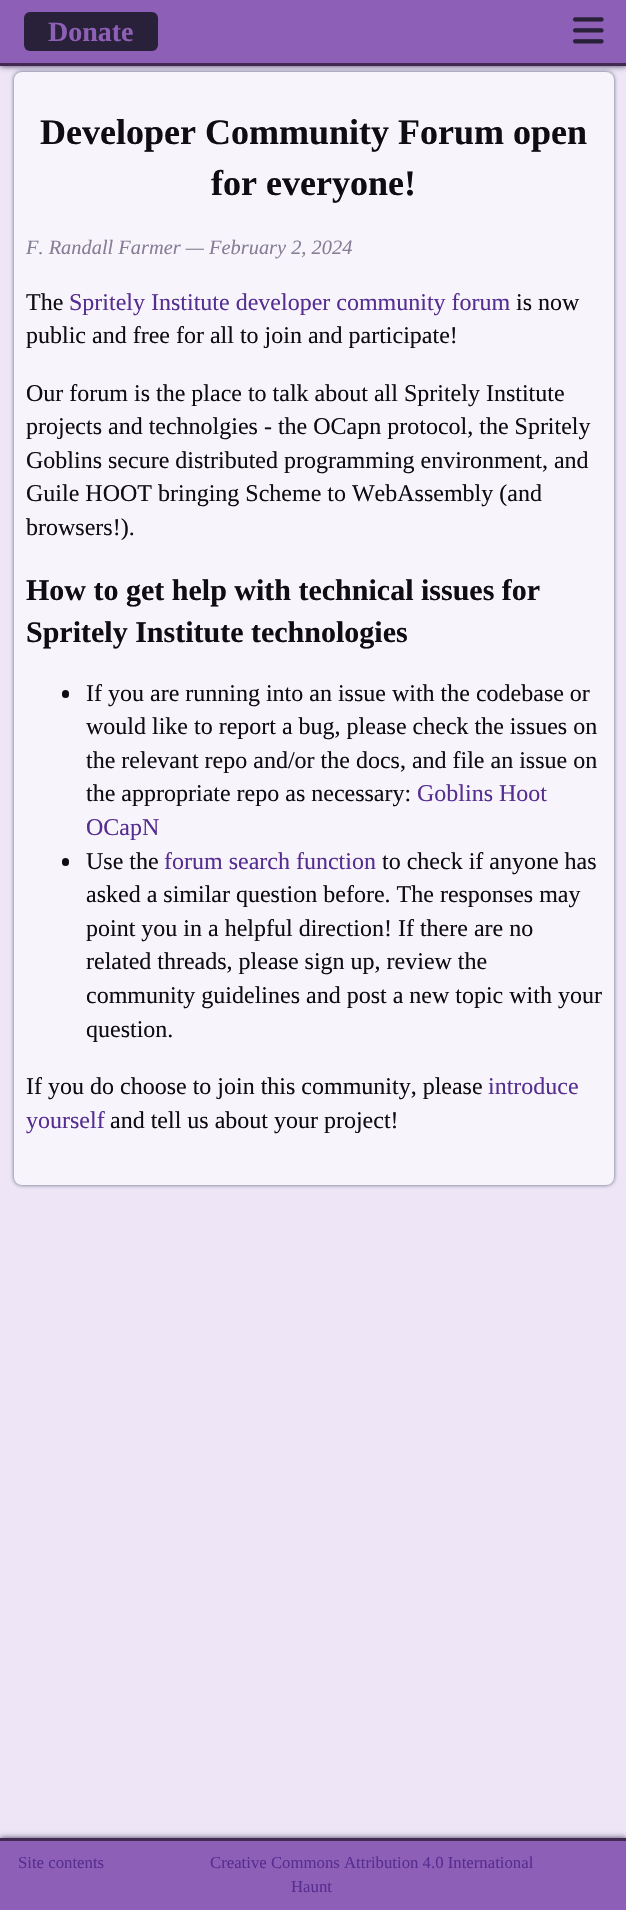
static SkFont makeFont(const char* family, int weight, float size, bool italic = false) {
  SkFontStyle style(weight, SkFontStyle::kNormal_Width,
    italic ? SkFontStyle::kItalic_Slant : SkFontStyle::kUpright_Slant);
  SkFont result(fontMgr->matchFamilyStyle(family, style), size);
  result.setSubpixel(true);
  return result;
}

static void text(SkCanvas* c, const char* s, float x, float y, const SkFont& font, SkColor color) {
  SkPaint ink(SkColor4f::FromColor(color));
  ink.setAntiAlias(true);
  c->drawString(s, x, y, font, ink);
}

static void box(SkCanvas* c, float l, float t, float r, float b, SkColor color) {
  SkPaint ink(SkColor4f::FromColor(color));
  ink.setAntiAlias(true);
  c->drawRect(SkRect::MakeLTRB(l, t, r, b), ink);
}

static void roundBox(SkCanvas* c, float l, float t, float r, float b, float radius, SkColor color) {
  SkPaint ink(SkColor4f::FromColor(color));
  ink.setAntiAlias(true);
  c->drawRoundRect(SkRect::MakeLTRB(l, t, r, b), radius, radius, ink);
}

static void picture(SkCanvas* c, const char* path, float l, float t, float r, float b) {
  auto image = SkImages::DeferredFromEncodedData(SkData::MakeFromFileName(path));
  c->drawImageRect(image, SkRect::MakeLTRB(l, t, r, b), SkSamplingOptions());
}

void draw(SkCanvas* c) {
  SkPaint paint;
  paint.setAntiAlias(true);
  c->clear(0xffeee6f7);
  paint.setColor(0xff3f3859);
  paint.setMaskFilter(SkMaskFilter::MakeBlur(kNormal_SkBlurStyle, 3));
  c->drawRect(SkRect::MakeLTRB(0, 0, 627, 66), paint);
  paint.setMaskFilter(nullptr);
  box(c, 0, 0, 626, 63, 0xff8e5fb7);
  box(c, 0, 63, 626, 66, 0xff422951);
  roundBox(c, 24, 12, 158, 51, 6, 0xff292139);
  SkFont face1 = makeFont("Liberation Serif", 700, 28);
  text(c, "Donate", 48, 41, face1, 0xff8e5fb7);
  picture(c, "img_01.png", 573, 17, 604, 44);
  paint.setColor(0xff5d667f);
  paint.setMaskFilter(SkMaskFilter::MakeBlur(kNormal_SkBlurStyle, 2));
  c->drawRoundRect(SkRect::MakeLTRB(14, 72, 614, 1185), 8, 8, paint);
  paint.setMaskFilter(nullptr);
  roundBox(c, 14, 72, 614, 1185, 8, 0xfff7f5fb);
  SkFont face2 = makeFont("Liberation Serif", 700, 36);
  text(c, "Developer Community Forum open", 40, 144, face2, 0xff0f0d11);
  text(c, "for everyone!", 211, 195, face2, 0xff0f0d11);
  SkFont face3 = makeFont("Liberation Serif", 400, 20.4f, true);
  text(c, "F. Randall Farmer — February 2, 2024", 26, 254, face3, 0xff887d97);
  SkFont face4 = makeFont("Liberation Serif", 400, 24);
  text(c, "The", 26, 310, face4, 0xff0f0d11);
  text(c, "Spritely Institute developer community forum", 69, 310, face4, 0xff562e91);
  text(c, "is now", 516, 310, face4, 0xff0f0d11);
  text(c, "public and free for all to join and participate!", 26, 343, face4, 0xff0f0d11);
  text(c, "Our forum is the place to talk about all Spritely Institute", 26, 401, face4, 0xff0f0d11);
  text(c, "projects and technolgies - the OCapn protocol, the Spritely", 26, 434, face4, 0xff0f0d11);
  text(c, "Goblins secure distributed programming environment, and", 26, 468, face4, 0xff0f0d11);
  text(c, "Guile HOOT bringing Scheme to WebAssembly (and", 26, 501, face4, 0xff0f0d11);
  text(c, "browsers!).", 26, 535, face4, 0xff0f0d11);
  SkFont face5 = makeFont("Liberation Serif", 700, 30);
  text(c, "How to get help with technical issues for", 26, 600, face5, 0xff0f0d11);
  text(c, "Spritely Institute technologies", 26, 642, face5, 0xff0f0d11);
  roundBox(c, 62, 690, 69, 698, 3.5f, 0xff0f0d11);
  text(c, "If you are running into an issue with the codebase or", 86, 701, face4, 0xff0f0d11);
  text(c, "would like to report a bug, please check the issues on", 86, 734, face4, 0xff0f0d11);
  text(c, "the relevant repo and/or the docs, and file an issue on", 86, 768, face4, 0xff0f0d11);
  text(c, "the appropriate repo as necessary:", 86, 801, face4, 0xff0f0d11);
  text(c, "Goblins Hoot", 417, 801, face4, 0xff562e91);
  text(c, "OCapN", 86, 835, face4, 0xff562e91);
  roundBox(c, 62, 858, 69, 866, 3.5f, 0xff0f0d11);
  text(c, "Use the", 86, 869, face4, 0xff0f0d11);
  text(c, "forum search function", 164, 869, face4, 0xff562e91);
  text(c, "to check if anyone has", 382, 869, face4, 0xff0f0d11);
  text(c, "asked a similar question before. The responses may", 86, 902, face4, 0xff0f0d11);
  text(c, "point you in a helpful direction! If there are no", 86, 936, face4, 0xff0f0d11);
  text(c, "related threads, please sign up, review the", 86, 969, face4, 0xff0f0d11);
  text(c, "community guidelines and post a new topic with your", 86, 1003, face4, 0xff0f0d11);
  text(c, "question.", 86, 1037, face4, 0xff0f0d11);
  text(c, "If you do choose to join this community, please", 26, 1094, face4, 0xff0f0d11);
  text(c, "introduce", 488, 1094, face4, 0xff562e91);
  text(c, "yourself", 26, 1128, face4, 0xff562e91);
  text(c, "and tell us about your project!", 110, 1128, face4, 0xff0f0d11);
  paint.setColor(0xff3f3859);
  paint.setMaskFilter(SkMaskFilter::MakeBlur(kNormal_SkBlurStyle, 3));
  c->drawRect(SkRect::MakeLTRB(0, 1838, 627, 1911), paint);
  paint.setMaskFilter(nullptr);
  box(c, 0, 1841, 626, 1910, 0xff8e5fb7);
  box(c, 0, 1838, 626, 1841, 0xff422951);
  SkFont face6 = makeFont("Liberation Serif", 400, 16.75f);
  text(c, "Site contents", 18, 1868, face6, 0xff562e91);
  text(c, "Creative Commons Attribution 4.0 International", 210, 1868, face6, 0xff562e91);
  text(c, "Haunt", 291, 1892, face6, 0xff562e91);
}
